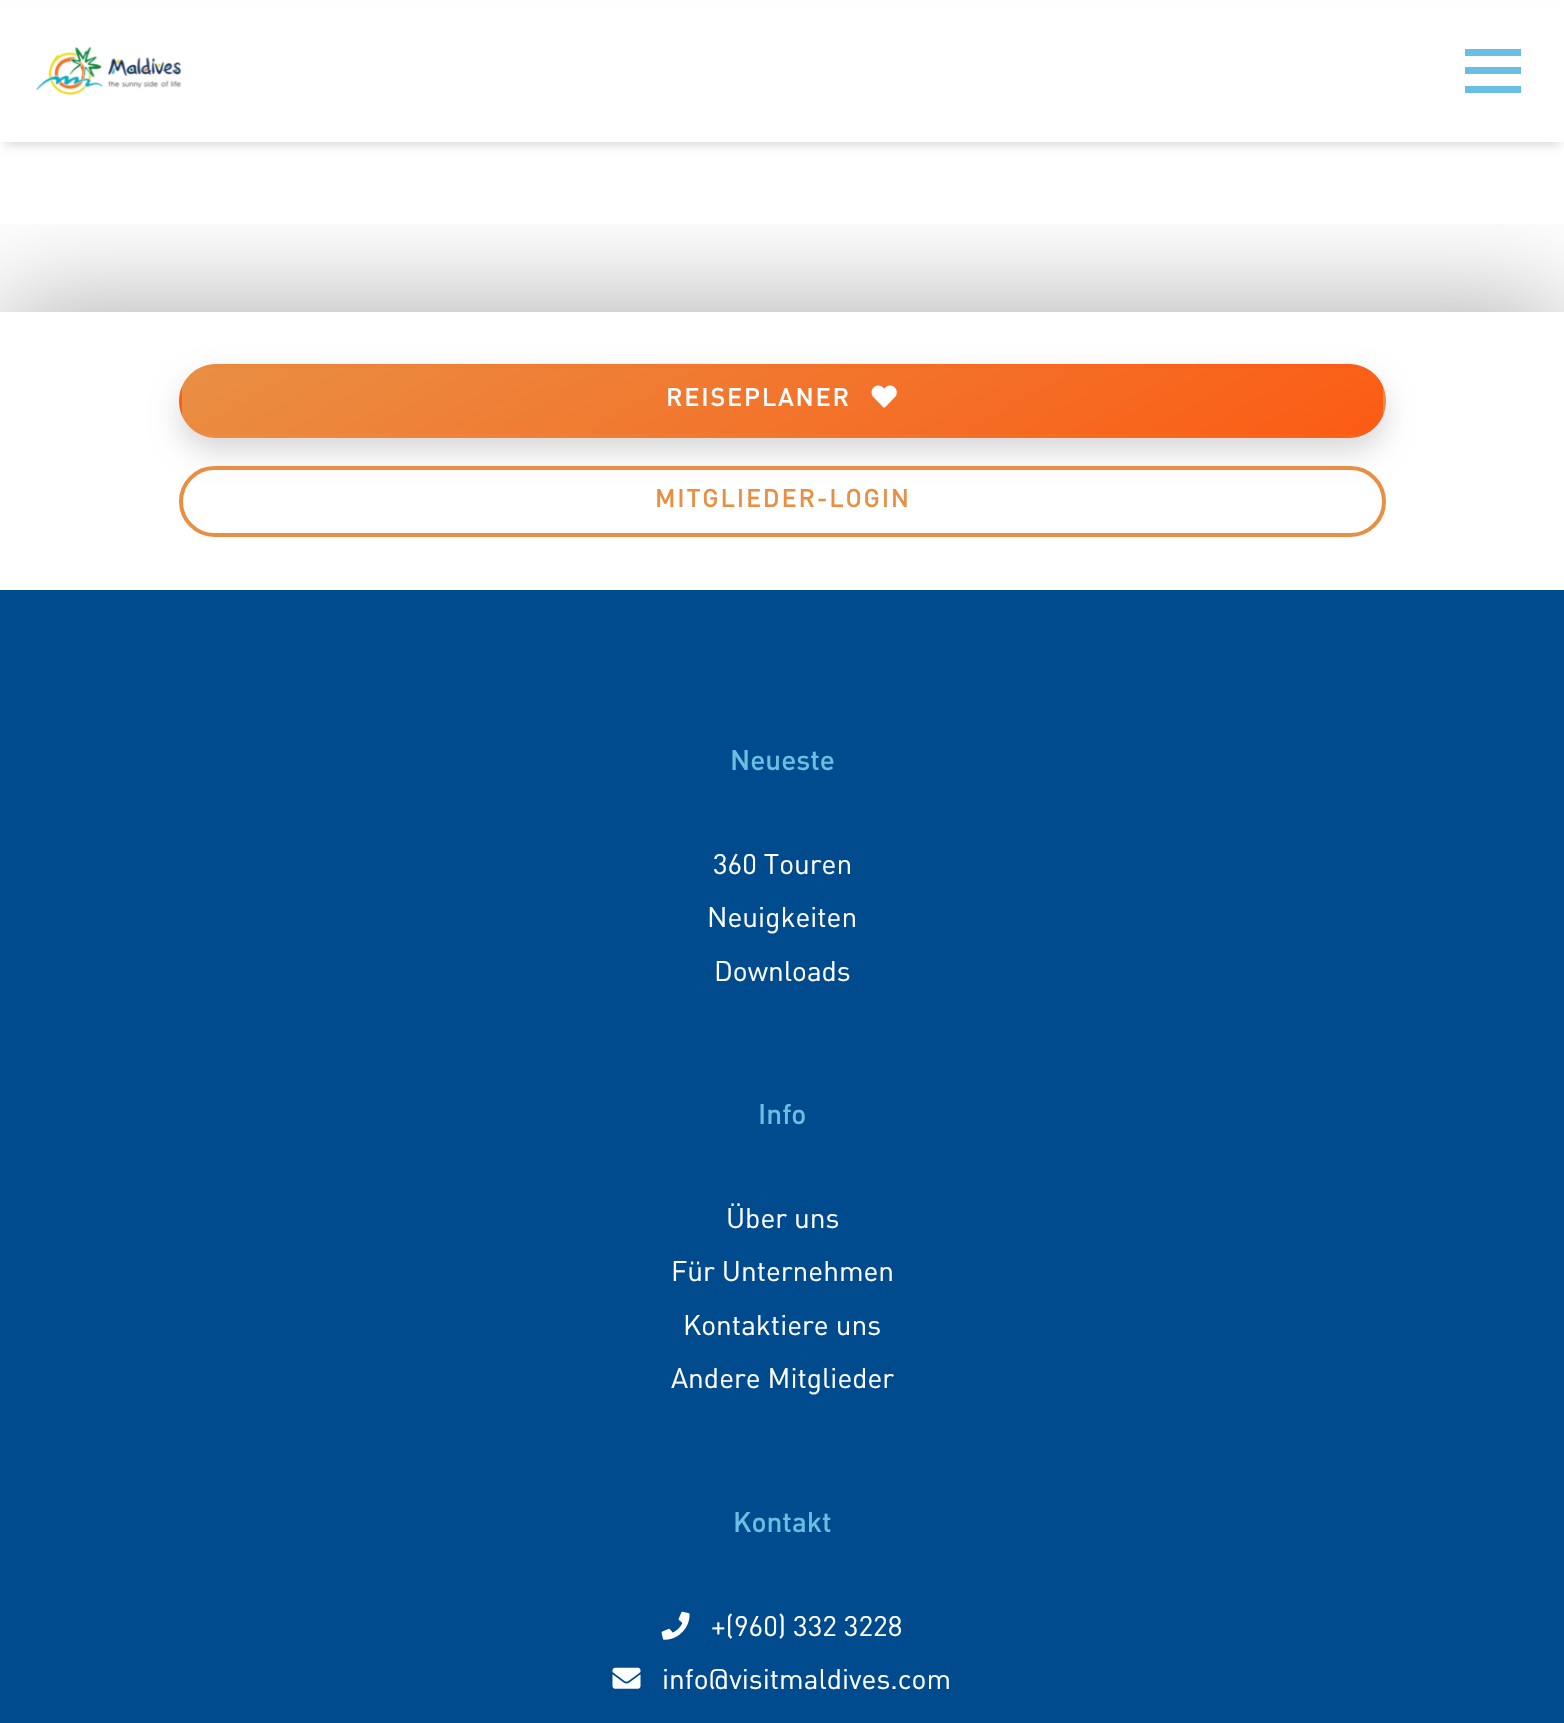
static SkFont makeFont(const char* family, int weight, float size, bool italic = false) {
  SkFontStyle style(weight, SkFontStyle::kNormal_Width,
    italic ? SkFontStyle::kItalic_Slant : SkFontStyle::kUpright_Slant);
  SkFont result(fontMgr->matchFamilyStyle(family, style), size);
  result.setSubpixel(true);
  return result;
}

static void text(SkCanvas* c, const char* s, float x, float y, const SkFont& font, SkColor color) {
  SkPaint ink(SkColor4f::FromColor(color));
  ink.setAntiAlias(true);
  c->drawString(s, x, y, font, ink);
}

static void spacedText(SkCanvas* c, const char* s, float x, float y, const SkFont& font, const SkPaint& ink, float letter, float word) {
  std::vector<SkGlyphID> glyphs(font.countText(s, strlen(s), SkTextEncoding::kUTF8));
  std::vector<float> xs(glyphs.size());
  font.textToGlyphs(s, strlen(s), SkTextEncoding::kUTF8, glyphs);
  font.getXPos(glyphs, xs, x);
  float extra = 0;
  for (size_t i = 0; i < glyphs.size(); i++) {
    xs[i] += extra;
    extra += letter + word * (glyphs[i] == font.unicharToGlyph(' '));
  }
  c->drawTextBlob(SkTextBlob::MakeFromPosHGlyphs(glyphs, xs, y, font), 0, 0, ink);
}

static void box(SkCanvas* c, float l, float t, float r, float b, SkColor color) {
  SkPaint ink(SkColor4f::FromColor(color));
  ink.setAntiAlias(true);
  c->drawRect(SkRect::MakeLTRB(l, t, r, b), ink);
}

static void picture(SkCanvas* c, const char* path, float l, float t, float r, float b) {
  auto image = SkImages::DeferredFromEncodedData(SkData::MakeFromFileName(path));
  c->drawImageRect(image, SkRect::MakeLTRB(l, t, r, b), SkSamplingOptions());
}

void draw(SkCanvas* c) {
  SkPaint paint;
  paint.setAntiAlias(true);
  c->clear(0xffffffff);
  paint.setColor(0x26000000);
  paint.setMaskFilter(SkMaskFilter::MakeBlur(kNormal_SkBlurStyle, 4.5f));
  c->drawRect(SkRect::MakeLTRB(5, 14, 1559, 145), paint);
  paint.setMaskFilter(nullptr);
  box(c, 0, 7, 1564, 142, 0xffffffff);
  picture(c, "img_01.png", 35, 46, 182, 95);
  box(c, 1465, 67, 1521, 74, 0xff68bfe2);
  box(c, 1465, 49, 1521, 56, 0xff68bfe2);
  box(c, 1465, 86, 1521, 93, 0xff68bfe2);
  c->save();
  c->clipRect(SkRect::MakeLTRB(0, 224, 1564, 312));
  paint.setColor(0x4d000000);
  paint.setMaskFilter(SkMaskFilter::MakeBlur(kNormal_SkBlurStyle, 52.5f));
  c->drawRect(SkRect::MakeLTRB(0, 303, 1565, 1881), paint);
  paint.setMaskFilter(nullptr);
  c->restore();
  paint.setColor(0x26000000);
  paint.setMaskFilter(SkMaskFilter::MakeBlur(kNormal_SkBlurStyle, 14));
  c->drawRoundRect(SkRect::MakeLTRB(179, 378, 1386, 452), 37, 37, paint);
  paint.setMaskFilter(nullptr);
  c->save();
  c->clipPath(SkPathBuilder().moveTo(216, 364).lineTo(1349, 364).cubicTo(1369.5f, 364, 1386, 380.5f, 1386, 401).cubicTo(1386, 421.5f, 1369.5f, 438, 1349, 438).lineTo(216, 438).cubicTo(195.5f, 438, 179, 421.5f, 179, 401).cubicTo(179, 380.5f, 195.5f, 364, 216, 364).close().detach(), true);
  {
    const SkColor colors[] = {0xffe98f44, 0xfffc5b14};
    const float stops[] = {0, 1};
    const SkPoint ends[] = {{618, 49}, {947, 619}};
    paint.setShader(SkGradientShader::MakeLinear(ends, colors, stops, 2, SkTileMode::kClamp));
    paint.setAlpha(255);
  }
  c->drawRect(SkRect::MakeLTRB(199, 364, 1366, 368), paint);
  {
    const SkColor colors[] = {0xffe98f44, 0xfffc5b14};
    const float stops[] = {0, 1};
    const SkPoint ends[] = {{-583, 116}, {-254, 686}};
    paint.setShader(SkGradientShader::MakeLinear(ends, colors, stops, 2, SkTileMode::kClamp));
    paint.setAlpha(255);
  }
  c->drawRect(SkRect::MakeLTRB(179, 386, 182, 416), paint);
  {
    const SkColor colors[] = {0xffe98f44, 0xfffc5b14};
    const float stops[] = {0, 1};
    const SkPoint ends[] = {{618, 116}, {947, 686}};
    paint.setShader(SkGradientShader::MakeLinear(ends, colors, stops, 2, SkTileMode::kClamp));
    paint.setAlpha(255);
  }
  c->drawRect(SkRect::MakeLTRB(182, 368, 1383, 434), paint);
  {
    const SkColor colors[] = {0xffe98f44, 0xfffc5b14};
    const float stops[] = {0, 1};
    const SkPoint ends[] = {{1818, 116}, {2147, 686}};
    paint.setShader(SkGradientShader::MakeLinear(ends, colors, stops, 2, SkTileMode::kClamp));
    paint.setAlpha(255);
  }
  c->drawRect(SkRect::MakeLTRB(1383, 386, 1386, 416), paint);
  {
    const SkColor colors[] = {0xffe98f44, 0xfffc5b14};
    const float stops[] = {0, 1};
    const SkPoint ends[] = {{618, 182}, {947, 752}};
    paint.setShader(SkGradientShader::MakeLinear(ends, colors, stops, 2, SkTileMode::kClamp));
    paint.setAlpha(255);
  }
  c->drawRect(SkRect::MakeLTRB(199, 434, 1366, 438), paint);
  c->restore();
  SkFont face1 = makeFont("Din", 400, 25.25f);
  paint.setShader(nullptr);
  paint.setColor(0xffffffff);
  spacedText(c, "REISEPLANER", 666, 406, face1, paint, 1.75f, 0);
  picture(c, "img_02.png", 871, 385, 897, 408);
  paint.setStyle(SkPaint::kStroke_Style);
  paint.setStrokeWidth(4);
  paint.setColor(0xffe98f44);
  c->drawRoundRect(SkRect::MakeLTRB(181, 468, 1384, 535), 33.5f, 33.5f, paint);
  paint.setStyle(SkPaint::kFill_Style);
  spacedText(c, "MITGLIEDER-LOGIN", 655, 507, face1, paint, 1.75f, 0);
  box(c, 0, 590, 1564, 1723, 0xff004a8e);
  SkFont face2 = makeFont("Din", 400, 28);
  text(c, "Neueste", 730, 770, face2, 0xff68bfe2);
  SkFont face3 = makeFont("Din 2", 400, 28);
  text(c, "360 Touren", 713, 874, face3, 0xffffffff);
  text(c, "Neuigkeiten", 707, 927, face3, 0xffffffff);
  text(c, "Downloads", 714, 981, face3, 0xffffffff);
  text(c, "Info", 758, 1124, face2, 0xff68bfe2);
  text(c, "Über uns", 726, 1228, face3, 0xffffffff);
  text(c, "Für Unternehmen", 671, 1281, face3, 0xffffffff);
  text(c, "Kontaktiere uns", 683, 1335, face3, 0xffffffff);
  text(c, "Andere Mitglieder", 671, 1388, face3, 0xffffffff);
  text(c, "Kontakt", 733, 1532, face2, 0xff68bfe2);
  picture(c, "img_03.png", 661, 1611, 690, 1640);
  text(c, "+(960) 332 3228", 711, 1636, face3, 0xffffffff);
  picture(c, "img_04.png", 612, 1667, 641, 1689);
  text(c, "info@visitmaldives.com", 662, 1689, face3, 0xffffffff);
}
